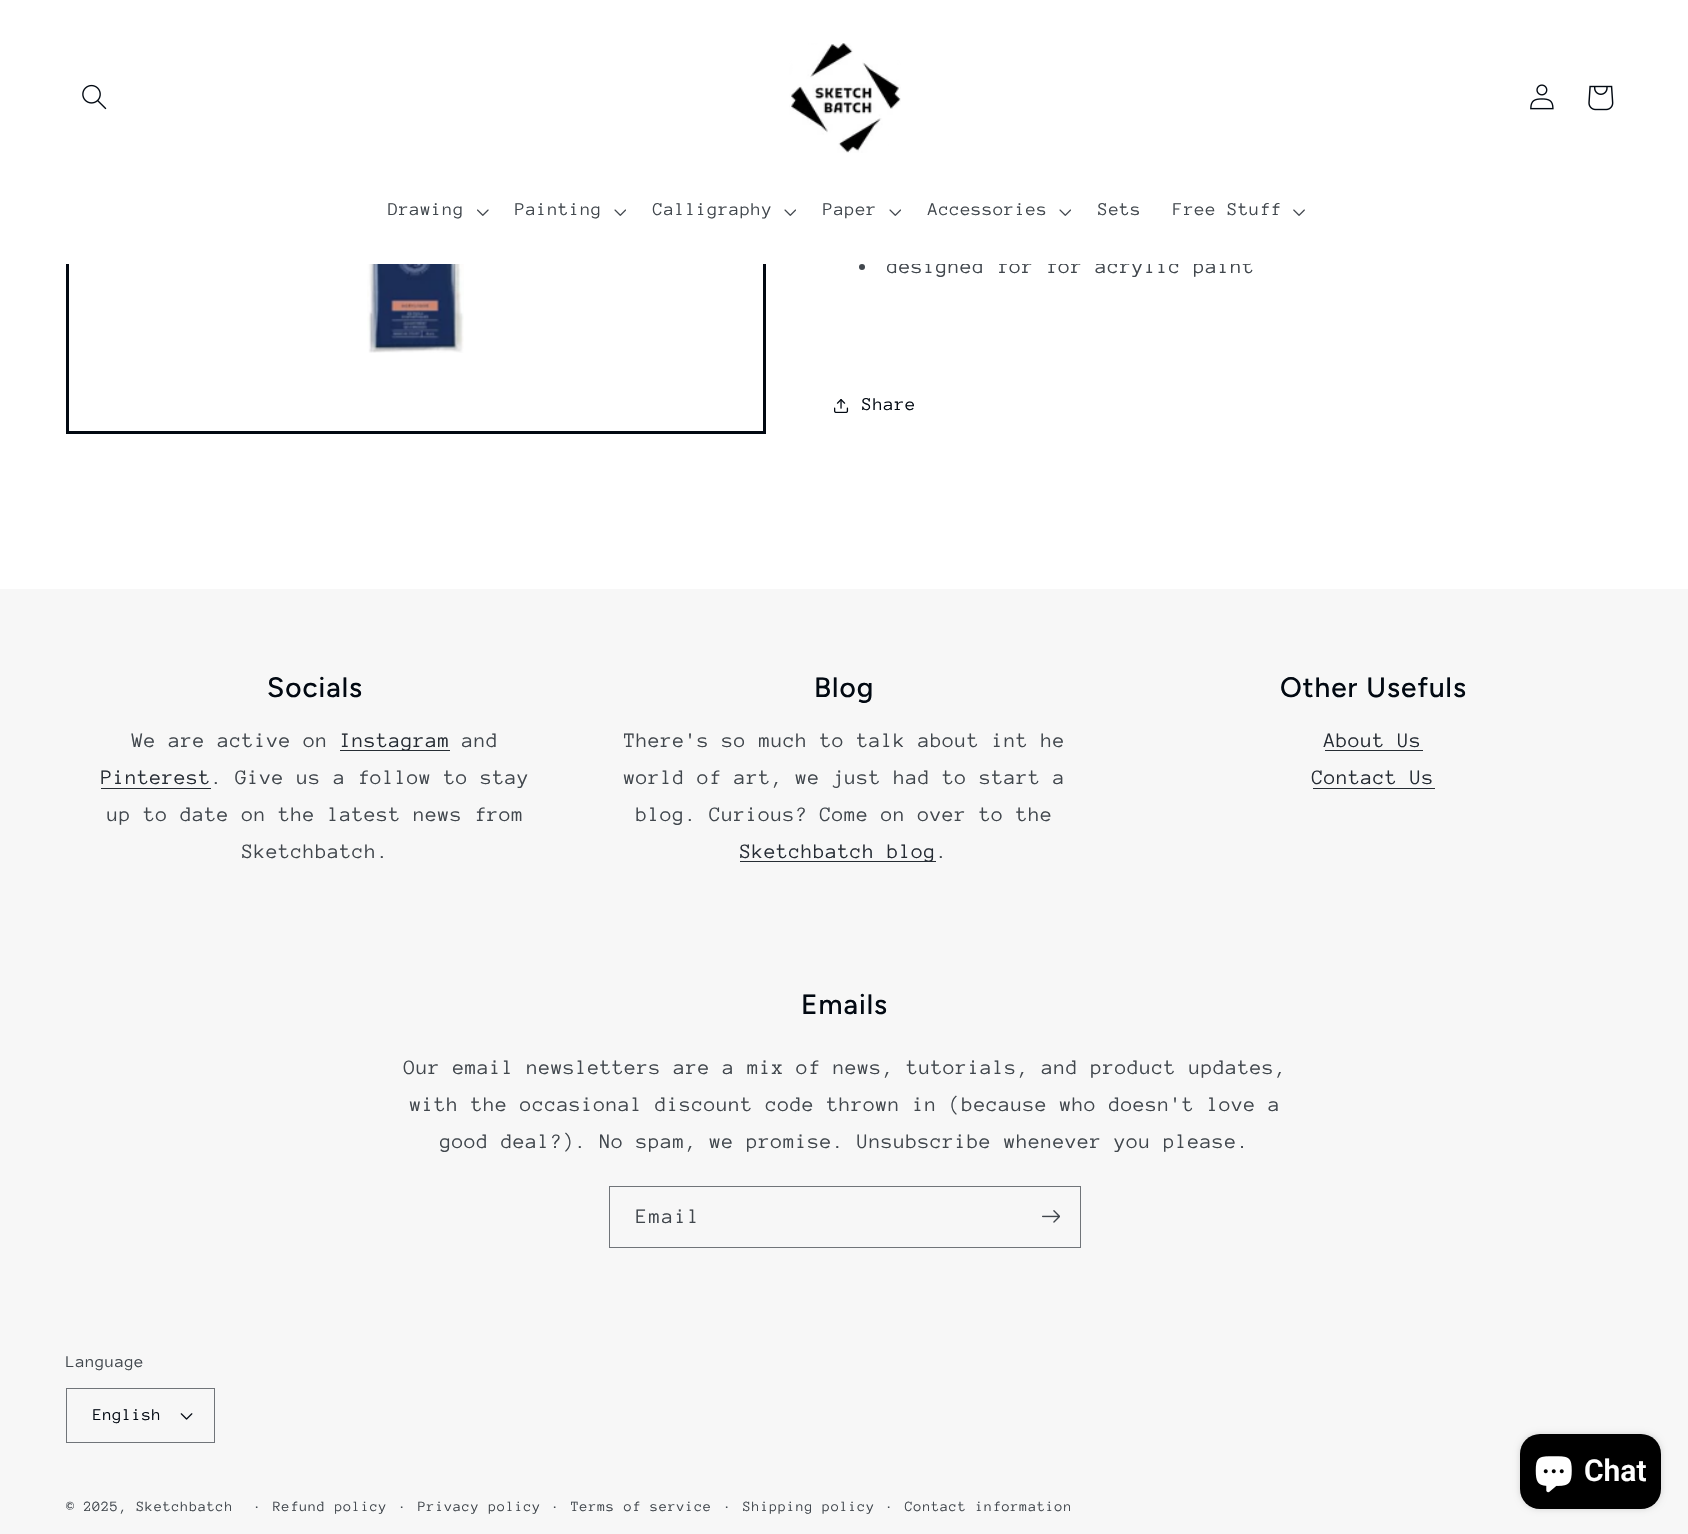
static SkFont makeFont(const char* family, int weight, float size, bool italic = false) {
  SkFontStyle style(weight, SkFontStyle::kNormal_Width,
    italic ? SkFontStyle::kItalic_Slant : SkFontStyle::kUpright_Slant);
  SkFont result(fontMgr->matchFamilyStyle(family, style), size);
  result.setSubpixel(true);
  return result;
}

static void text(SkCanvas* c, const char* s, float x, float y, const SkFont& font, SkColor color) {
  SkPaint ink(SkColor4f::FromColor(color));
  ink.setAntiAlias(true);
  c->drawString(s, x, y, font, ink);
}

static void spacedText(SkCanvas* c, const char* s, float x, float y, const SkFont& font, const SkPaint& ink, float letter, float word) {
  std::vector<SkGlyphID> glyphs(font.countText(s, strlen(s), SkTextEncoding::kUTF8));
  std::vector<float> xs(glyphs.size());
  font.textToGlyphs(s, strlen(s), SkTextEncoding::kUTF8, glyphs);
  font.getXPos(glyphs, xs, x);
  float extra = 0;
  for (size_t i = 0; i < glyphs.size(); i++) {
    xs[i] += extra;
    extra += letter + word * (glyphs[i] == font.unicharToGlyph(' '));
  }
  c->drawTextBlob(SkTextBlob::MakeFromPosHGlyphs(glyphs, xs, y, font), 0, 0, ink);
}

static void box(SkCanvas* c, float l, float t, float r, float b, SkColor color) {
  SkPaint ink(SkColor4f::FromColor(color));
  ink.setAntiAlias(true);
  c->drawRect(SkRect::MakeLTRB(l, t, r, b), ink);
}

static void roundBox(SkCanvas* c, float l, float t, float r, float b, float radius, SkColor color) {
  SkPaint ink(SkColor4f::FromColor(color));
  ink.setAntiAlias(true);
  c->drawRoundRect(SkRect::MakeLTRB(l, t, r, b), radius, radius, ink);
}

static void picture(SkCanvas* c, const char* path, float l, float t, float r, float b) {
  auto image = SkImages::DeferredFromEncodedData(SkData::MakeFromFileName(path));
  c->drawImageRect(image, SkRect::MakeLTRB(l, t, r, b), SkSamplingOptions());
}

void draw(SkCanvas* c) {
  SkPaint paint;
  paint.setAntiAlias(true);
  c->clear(0xffffffff);
  paint.setStyle(SkPaint::kStroke_Style);
  paint.setStrokeWidth(3);
  paint.setColor(0xff020912);
  c->drawRect(SkRect::MakeLTRB(67.5f, -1.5f, 764.5f, 432.5f), paint);
  SkFont face1 = makeFont("Anonymous Pro", 400, 21);
  paint.setStyle(SkPaint::kFill_Style);
  paint.setColor(0xff41474d);
  spacedText(c, "designed for for acrylic paint", 887, 273, face1, paint, 0.8f, 0);
  box(c, 66, 0, 1250, 264, 0xffffffff);
  picture(c, "img_01.png", 82, 84, 107, 110);
  picture(c, "img_02.png", 789, 43, 901, 153);
  picture(c, "img_03.png", 1530, 84, 1554, 110);
  picture(c, "img_04.png", 1588, 85, 1614, 111);
  SkFont face2 = makeFont("Anonymous Pro", 400, 18.5f);
  spacedText(c, "Drawing", 388, 215, face2, paint, 0.8f, 0);
  picture(c, "img_05.png", 477, 209, 489, 216);
  spacedText(c, "Painting", 515, 215, face2, paint, 0.8f, 0);
  picture(c, "img_06.png", 614, 209, 626, 216);
  spacedText(c, "Calligraphy", 653, 215, face2, paint, 0.8f, 0);
  picture(c, "img_06.png", 784, 209, 796, 216);
  spacedText(c, "Paper", 823, 215, face2, paint, 0.8f, 0);
  picture(c, "img_06.png", 889, 209, 901, 216);
  spacedText(c, "Accessories", 928, 215, face2, paint, 0.8f, 0);
  picture(c, "img_06.png", 1059, 209, 1071, 216);
  spacedText(c, "Sets", 1098, 215, face2, paint, 0.8f, 0);
  spacedText(c, "Free Stuff", 1173, 215, face2, paint, 0.8f, 0);
  picture(c, "img_07.png", 1293, 209, 1305, 216);
  picture(c, "img_08.png", 367, 264, 464, 353);
  c->drawCircle(862, 267, 3, paint);
  picture(c, "img_09.png", 834, 399, 849, 413);
  paint.setColor(0xff020912);
  spacedText(c, "Share", 862, 410, face2, paint, 0.8f, 0);
  box(c, 0, 589, 1688, 948, 0xfff7f7f7);
  SkFont face3 = makeFont("Figtree", 500, 28);
  spacedText(c, "Socials", 267, 697, face3, paint, 1, 0);
  paint.setColor(0xff41474d);
  spacedText(c, "We are active on", 132, 747, face1, paint, 0.8f, 0);
  box(c, 340, 750, 450, 751, 0xff272d34);
  paint.setColor(0xff262c34);
  spacedText(c, "Instagram", 340, 747, face1, paint, 0.8f, 0);
  paint.setColor(0xff41474d);
  spacedText(c, "and", 462, 747, face1, paint, 0.8f, 0);
  paint.setColor(0xff262c34);
  spacedText(c, "Pinterest", 101, 784, face1, paint, 0.8f, 0);
  box(c, 101, 788, 211, 789, 0xff272d34);
  paint.setColor(0xff41474d);
  spacedText(c, ". Give us a follow to stay", 211, 784, face1, paint, 0.8f, 0);
  spacedText(c, "up to date on the latest news from", 107, 821, face1, paint, 0.8f, 0);
  spacedText(c, "Sketchbatch.", 242, 858, face1, paint, 0.8f, 0);
  paint.setColor(0xff020912);
  spacedText(c, "Blog", 814, 697, face3, paint, 1, 0);
  paint.setColor(0xff41474d);
  spacedText(c, "There's so much to talk about int he", 624, 747, face1, paint, 0.8f, 0);
  spacedText(c, "world of art, we just had to start a", 624, 784, face1, paint, 0.8f, 0);
  spacedText(c, "blog. Curious? Come on over to the", 636, 821, face1, paint, 0.8f, 0);
  box(c, 740, 861, 936, 862, 0xff272d34);
  paint.setColor(0xff262c34);
  spacedText(c, "Sketchbatch blog", 740, 858, face1, paint, 0.8f, 0);
  paint.setColor(0xff41474d);
  spacedText(c, ".", 936, 858, face1, paint, 0.8f, 0);
  paint.setColor(0xff020912);
  spacedText(c, "Other Usefuls", 1280, 697, face3, paint, 1, 0);
  paint.setColor(0xff262c34);
  spacedText(c, "About Us", 1324, 747, face1, paint, 0.8f, 0);
  box(c, 1325, 750, 1423, 751, 0xff272d34);
  spacedText(c, "Contact Us", 1312, 784, face1, paint, 0.8f, 0);
  box(c, 1313, 788, 1435, 789, 0xff272d34);
  box(c, 0, 948, 1688, 1534, 0xfff7f7f7);
  paint.setColor(0xff020912);
  spacedText(c, "Emails", 801, 1014, face3, paint, 1, 0);
  paint.setColor(0xff41474d);
  spacedText(c, "Our email newsletters are a mix of news, tutorials, and product updates,", 404, 1074, face1, paint, 0.8f, 0);
  spacedText(c, "with the occasional discount code thrown in (because who doesn't love a", 410, 1111, face1, paint, 0.8f, 0);
  spacedText(c, "good deal?). No spam, we promise. Unsubscribe whenever you please.", 440, 1148, face1, paint, 0.8f, 0);
  paint.setStyle(SkPaint::kStroke_Style);
  paint.setStrokeWidth(1);
  paint.setColor(0xff707479);
  c->drawRect(SkRect::MakeLTRB(609.5f, 1186.5f, 1080.5f, 1247.5f), paint);
  paint.setStyle(SkPaint::kFill_Style);
  paint.setColor(0xff41474d);
  spacedText(c, "Email", 636, 1223, face1, paint, 1.5f, 0);
  picture(c, "img_10.png", 1042, 1210, 1060, 1223);
  SkFont face4 = makeFont("Anonymous Pro", 400, 17);
  spacedText(c, "Language", 66, 1367, face4, paint, 0.5f, 0);
  picture(c, "img_11.png", 180, 1413, 193, 1420);
  paint.setStyle(SkPaint::kStroke_Style);
  paint.setColor(0xff707479);
  c->drawRect(SkRect::MakeLTRB(66.5f, 1388.5f, 214.5f, 1442.5f), paint);
  paint.setStyle(SkPaint::kFill_Style);
  paint.setColor(0xff020912);
  spacedText(c, "English", 93, 1420, face4, paint, 0.5f, 0);
  SkFont face5 = makeFont("Anonymous Pro", 400, 14.5f);
  paint.setColor(0xff41474d);
  spacedText(c, "© 2025, Sketchbatch", 66, 1511, face5, paint, 0.9f, 0);
  SkFont face6 = makeFont("Anonymous Pro", 400, 16);
  spacedText(c, "·", 253, 1511, face6, paint, 0.9f, 0);
  spacedText(c, "Refund policy", 273, 1511, face5, paint, 0.9f, 0);
  spacedText(c, "·", 398, 1511, face6, paint, 0.9f, 0);
  spacedText(c, "Privacy policy", 418, 1511, face5, paint, 0.9f, 0);
  spacedText(c, "·", 551, 1511, face6, paint, 0.9f, 0);
  spacedText(c, "Terms of service", 571, 1511, face5, paint, 0.9f, 0);
  spacedText(c, "·", 723, 1511, face6, paint, 0.9f, 0);
  spacedText(c, "Shipping policy", 743, 1511, face5, paint, 0.9f, 0);
  spacedText(c, "·", 885, 1511, face6, paint, 0.9f, 0);
  spacedText(c, "Contact information", 905, 1511, face5, paint, 0.9f, 0);
  paint.setColor(0x26000000);
  paint.setMaskFilter(SkMaskFilter::MakeBlur(kNormal_SkBlurStyle, 3));
  c->drawRoundRect(SkRect::MakeLTRB(1520, 1434, 1661, 1509), 20, 20, paint);
  paint.setMaskFilter(nullptr);
  roundBox(c, 1520, 1434, 1661, 1509, 20, 0xff000000);
  picture(c, "img_12.png", 1535, 1456, 1572, 1493);
  SkFont face7 = makeFont("Roboto", 600, 30);
  text(c, "Chat", 1584, 1481, face7, 0xffffffff);
}
